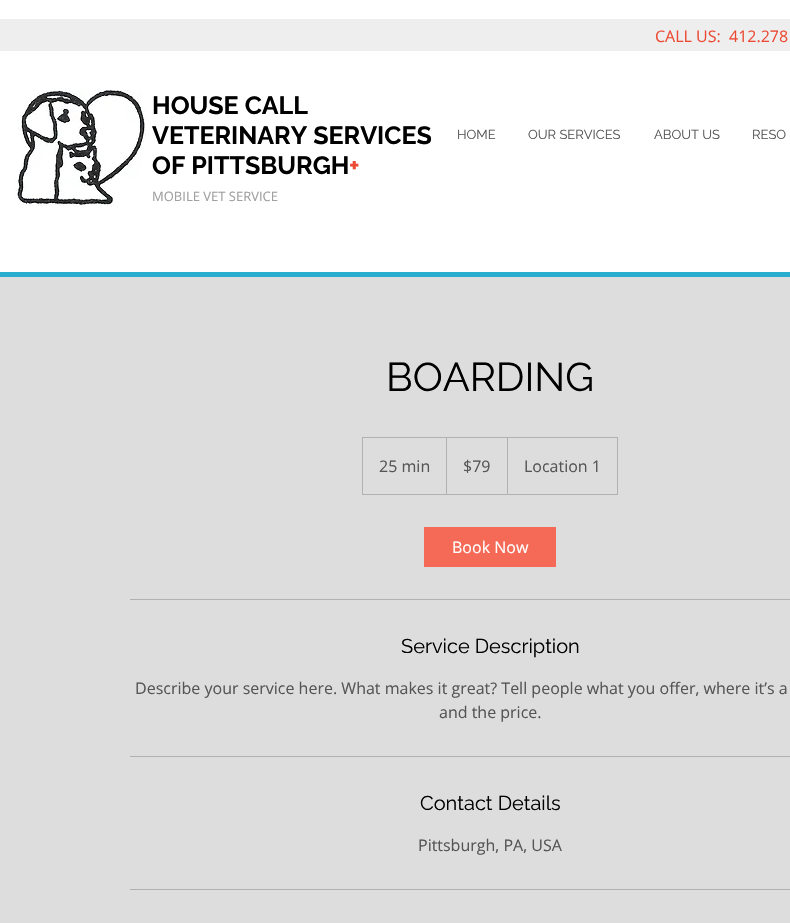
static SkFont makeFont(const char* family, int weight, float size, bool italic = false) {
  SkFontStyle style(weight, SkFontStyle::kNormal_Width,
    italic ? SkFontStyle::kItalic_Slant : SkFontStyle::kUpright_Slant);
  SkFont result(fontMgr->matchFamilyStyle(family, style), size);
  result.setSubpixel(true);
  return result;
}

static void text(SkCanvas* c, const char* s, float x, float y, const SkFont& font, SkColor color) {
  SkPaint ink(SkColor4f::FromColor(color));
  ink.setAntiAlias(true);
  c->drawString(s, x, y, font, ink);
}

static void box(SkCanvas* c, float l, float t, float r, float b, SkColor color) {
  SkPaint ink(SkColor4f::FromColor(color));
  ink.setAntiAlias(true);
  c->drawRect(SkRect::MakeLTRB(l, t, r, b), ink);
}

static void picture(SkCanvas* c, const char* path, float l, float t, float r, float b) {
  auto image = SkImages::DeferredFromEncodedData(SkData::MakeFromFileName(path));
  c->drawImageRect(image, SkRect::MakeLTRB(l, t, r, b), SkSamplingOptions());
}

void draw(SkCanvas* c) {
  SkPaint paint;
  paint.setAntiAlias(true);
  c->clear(0xffffffff);
  box(c, 0, 19, 790, 51, 0xffeeeeee);
  SkFont face1 = makeFont("Open Sans", 400, 16);
  text(c, "CALL US:", 655, 42, face1, 0xffec4a34);
  text(c, "412.278", 729, 42, face1, 0xffec4a34);
  picture(c, "img_01.png", 14, 90, 146, 206);
  SkFont face2 = makeFont("Raleway", 700, 25);
  text(c, "HOUSE CALL", 152, 114, face2, 0xff000000);
  text(c, "VETERINARY SERVICES", 152, 144, face2, 0xff000000);
  text(c, "OF PITTSBURGH", 152, 174, face2, 0xff000000);
  text(c, "+", 349, 174, face2, 0xffec4a34);
  SkFont face3 = makeFont("Open Sans", 400, 13);
  text(c, "MOBILE VET SERVICE", 152, 201, face3, 0xffa0a0a0);
  SkFont face4 = makeFont("Raleway", 400, 13);
  text(c, "HOME", 457, 139, face4, 0xff555555);
  text(c, "OUR SERVICES", 528, 139, face4, 0xff555555);
  text(c, "ABOUT US", 654, 139, face4, 0xff555555);
  text(c, "RESO", 752, 139, face4, 0xff555555);
  box(c, 0, 272, 790, 277, 0xff28add1);
  box(c, 0, 277, 790, 923, 0xffdddddd);
  SkFont face5 = makeFont("Raleway", 400, 40);
  text(c, "BOARDING", 386, 391, face5, 0xff000000);
  paint.setStyle(SkPaint::kStroke_Style);
  paint.setStrokeWidth(1);
  paint.setColor(0xffb1b1b1);
  c->drawRect(SkRect::MakeLTRB(362.5f, 437.5f, 617.5f, 494.5f), paint);
  text(c, "25 min", 379, 472, face1, 0xff555555);
  paint.setStyle(SkPaint::kFill_Style);
  c->drawPath(SkPathBuilder().moveTo(446, 494).lineTo(446, 437).lineTo(447, 438).lineTo(447, 494).close().detach(), paint);
  text(c, "$79", 463, 472, face1, 0xff555555);
  c->drawPath(SkPathBuilder().moveTo(507, 494).lineTo(507, 437).lineTo(508, 438).lineTo(508, 494).close().detach(), paint);
  text(c, "Location 1", 524, 472, face1, 0xff555555);
  box(c, 424, 527, 556, 567, 0xfff56a56);
  text(c, "Book Now", 452, 553, face1, 0xffffffff);
  box(c, 130, 599, 790, 600, 0xffb1b1b1);
  SkFont face6 = makeFont("Raleway", 400, 20);
  text(c, "Service Description", 401, 653, face6, 0xff000000);
  text(c, "Describe your service here. What makes it great? Tell people what you offer, where it’s a", 135, 694, face1, 0xff555555);
  text(c, "and the price.", 439, 718, face1, 0xff555555);
  box(c, 130, 756, 790, 757, 0xffb1b1b1);
  text(c, "Contact Details", 420, 810, face6, 0xff000000);
  text(c, "Pittsburgh, PA, USA", 418, 851, face1, 0xff555555);
  box(c, 130, 889, 790, 890, 0xffb1b1b1);
}
